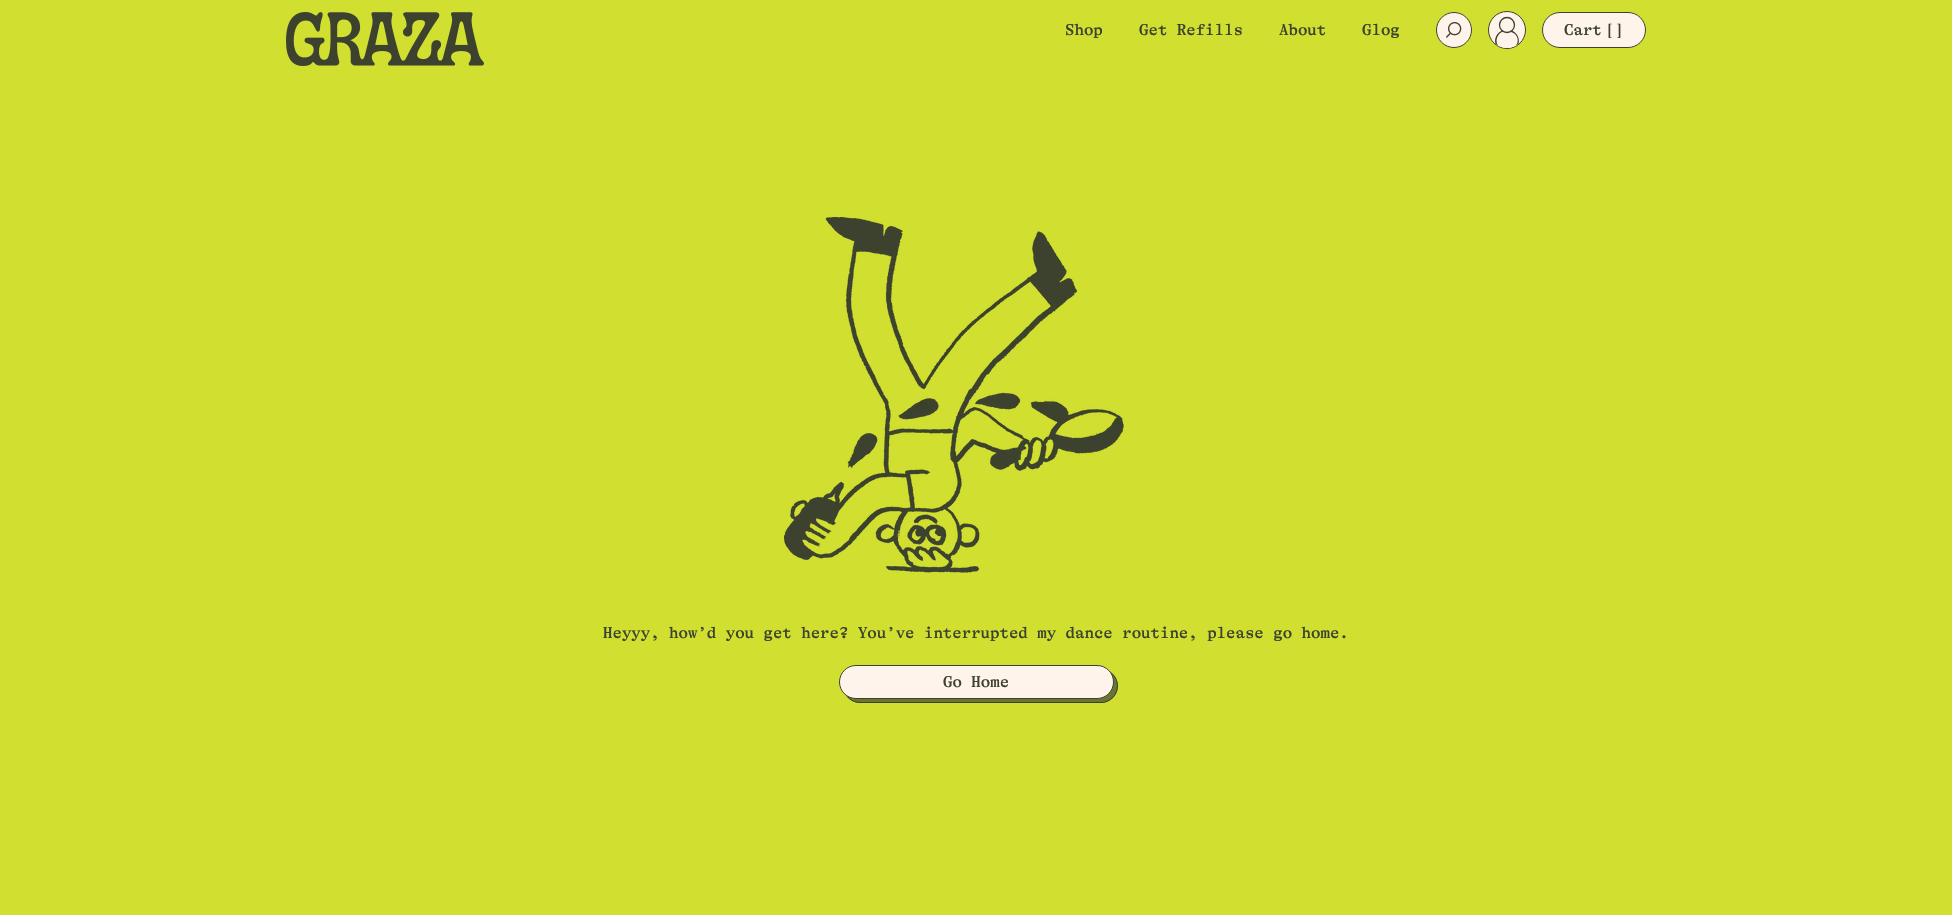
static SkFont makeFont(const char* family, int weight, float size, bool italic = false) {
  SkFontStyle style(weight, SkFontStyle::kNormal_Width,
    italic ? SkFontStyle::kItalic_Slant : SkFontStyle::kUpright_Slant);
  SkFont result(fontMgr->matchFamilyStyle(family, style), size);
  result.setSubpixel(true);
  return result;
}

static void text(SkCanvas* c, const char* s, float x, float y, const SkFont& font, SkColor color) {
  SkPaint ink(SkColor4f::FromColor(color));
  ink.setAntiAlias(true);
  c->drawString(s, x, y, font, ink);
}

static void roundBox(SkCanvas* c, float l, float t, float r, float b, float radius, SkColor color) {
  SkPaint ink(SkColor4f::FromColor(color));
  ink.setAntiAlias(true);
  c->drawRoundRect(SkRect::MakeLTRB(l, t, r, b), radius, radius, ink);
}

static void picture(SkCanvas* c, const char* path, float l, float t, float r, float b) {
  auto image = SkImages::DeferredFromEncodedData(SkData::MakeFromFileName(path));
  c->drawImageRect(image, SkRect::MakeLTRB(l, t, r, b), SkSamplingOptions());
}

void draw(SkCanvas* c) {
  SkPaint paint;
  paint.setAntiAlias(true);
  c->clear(0xffd1e030);
  picture(c, "img_01.png", 286, 12, 484, 66);
  SkFont face1 = makeFont("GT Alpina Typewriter", 500, 16);
  text(c, "Shop", 1065, 35, face1, 0xff3c422e);
  text(c, "Get Refills", 1139, 35, face1, 0xff3c422e);
  text(c, "About", 1279, 35, face1, 0xff3c422e);
  text(c, "Glog", 1362, 35, face1, 0xff3c422e);
  paint.setColor(0xfffff4ec);
  c->drawCircle(1454, 30, 17.5f, paint);
  paint.setStyle(SkPaint::kStroke_Style);
  paint.setStrokeWidth(1);
  paint.setColor(0xff3c422e);
  c->drawCircle(1454, 30, 17.5f, paint);
  picture(c, "img_02.png", 1446, 22, 1462, 38);
  paint.setStyle(SkPaint::kFill_Style);
  paint.setColor(0xfffff4ec);
  c->drawCircle(1507, 30, 18.5f, paint);
  paint.setStyle(SkPaint::kStroke_Style);
  paint.setColor(0xff3c422e);
  c->drawCircle(1507, 30, 18.5f, paint);
  c->save();
  c->clipPath(SkPathBuilder().moveTo(1507, 12).cubicTo(1517, 12, 1525, 20, 1525, 30).cubicTo(1525, 40, 1517, 48, 1507, 48).cubicTo(1497, 48, 1489, 40, 1489, 30).cubicTo(1489, 20, 1497, 12, 1507, 12).close().detach(), true);
  roundBox(c, 1495, 30, 1519, 51, 10.5f, 0xfffff4ec);
  c->restore();
  paint.setStyle(SkPaint::kFill_Style);
  c->drawPath(SkPathBuilder().moveTo(1505.5f, 30).cubicTo(1498.5f, 30, 1493.5f, 37.5f, 1495.5f, 44).lineTo(1498, 45.5f).cubicTo(1495, 41, 1497, 34.5f, 1502, 32).cubicTo(1503.5f, 31.5f, 1505, 31.5f, 1506.5f, 31.5f).cubicTo(1511.5f, 31.5f, 1516, 33, 1517.5f, 38.5f).cubicTo(1518, 41, 1517.5f, 43.5f, 1516, 45.5f).lineTo(1518.5f, 44).cubicTo(1520.5f, 37.5f, 1515.5f, 30, 1508.5f, 30).close().detach(), paint);
  paint.setColor(0xfffff4ec);
  c->drawCircle(1507, 25, 7.5f, paint);
  paint.setStyle(SkPaint::kStroke_Style);
  paint.setStrokeWidth(1.3f);
  paint.setColor(0xff3c422e);
  c->drawCircle(1507, 25, 7.5f, paint);
  paint.setStyle(SkPaint::kFill_Style);
  paint.setColor(0xfffff4ec);
  c->drawRoundRect(SkRect::MakeLTRB(1542.5f, 12.5f, 1645.5f, 47.5f), 17.5f, 17.5f, paint);
  paint.setStyle(SkPaint::kStroke_Style);
  paint.setStrokeWidth(1);
  paint.setColor(0xff3c422e);
  c->drawRoundRect(SkRect::MakeLTRB(1542.5f, 12.5f, 1645.5f, 47.5f), 17.5f, 17.5f, paint);
  text(c, "Cart", 1564, 35, face1, 0xff3c422e);
  text(c, "[]", 1605, 35, face1, 0xff3c422e);
  picture(c, "img_03.png", 784, 217, 1124, 573);
  text(c, "Heyyy, how’d you get here? You’ve interrupted my dance routine, please go home.", 603, 638, face1, 0xff3c422e);
  roundBox(c, 843, 669, 1118, 703, 17, 0x403c422e);
  roundBox(c, 843, 669, 1118, 703, 17, 0x403c422e);
  roundBox(c, 843, 669, 1118, 703, 17, 0x403c422e);
  paint.setStyle(SkPaint::kFill_Style);
  paint.setColor(0x403c422e);
  c->drawRoundRect(SkRect::MakeLTRB(843.5f, 669.5f, 1117.5f, 702.5f), 16.5f, 16.5f, paint);
  paint.setStyle(SkPaint::kStroke_Style);
  paint.setColor(0xff3c422e);
  c->drawRoundRect(SkRect::MakeLTRB(843.5f, 669.5f, 1117.5f, 702.5f), 16.5f, 16.5f, paint);
  paint.setStyle(SkPaint::kFill_Style);
  paint.setColor(0xfffff4ec);
  c->drawRoundRect(SkRect::MakeLTRB(839.5f, 665.5f, 1113.5f, 698.5f), 16.5f, 16.5f, paint);
  paint.setStyle(SkPaint::kStroke_Style);
  paint.setColor(0xff3c422e);
  c->drawRoundRect(SkRect::MakeLTRB(839.5f, 665.5f, 1113.5f, 698.5f), 16.5f, 16.5f, paint);
  text(c, "Go Home", 943, 687, face1, 0xff3c422e);
}
